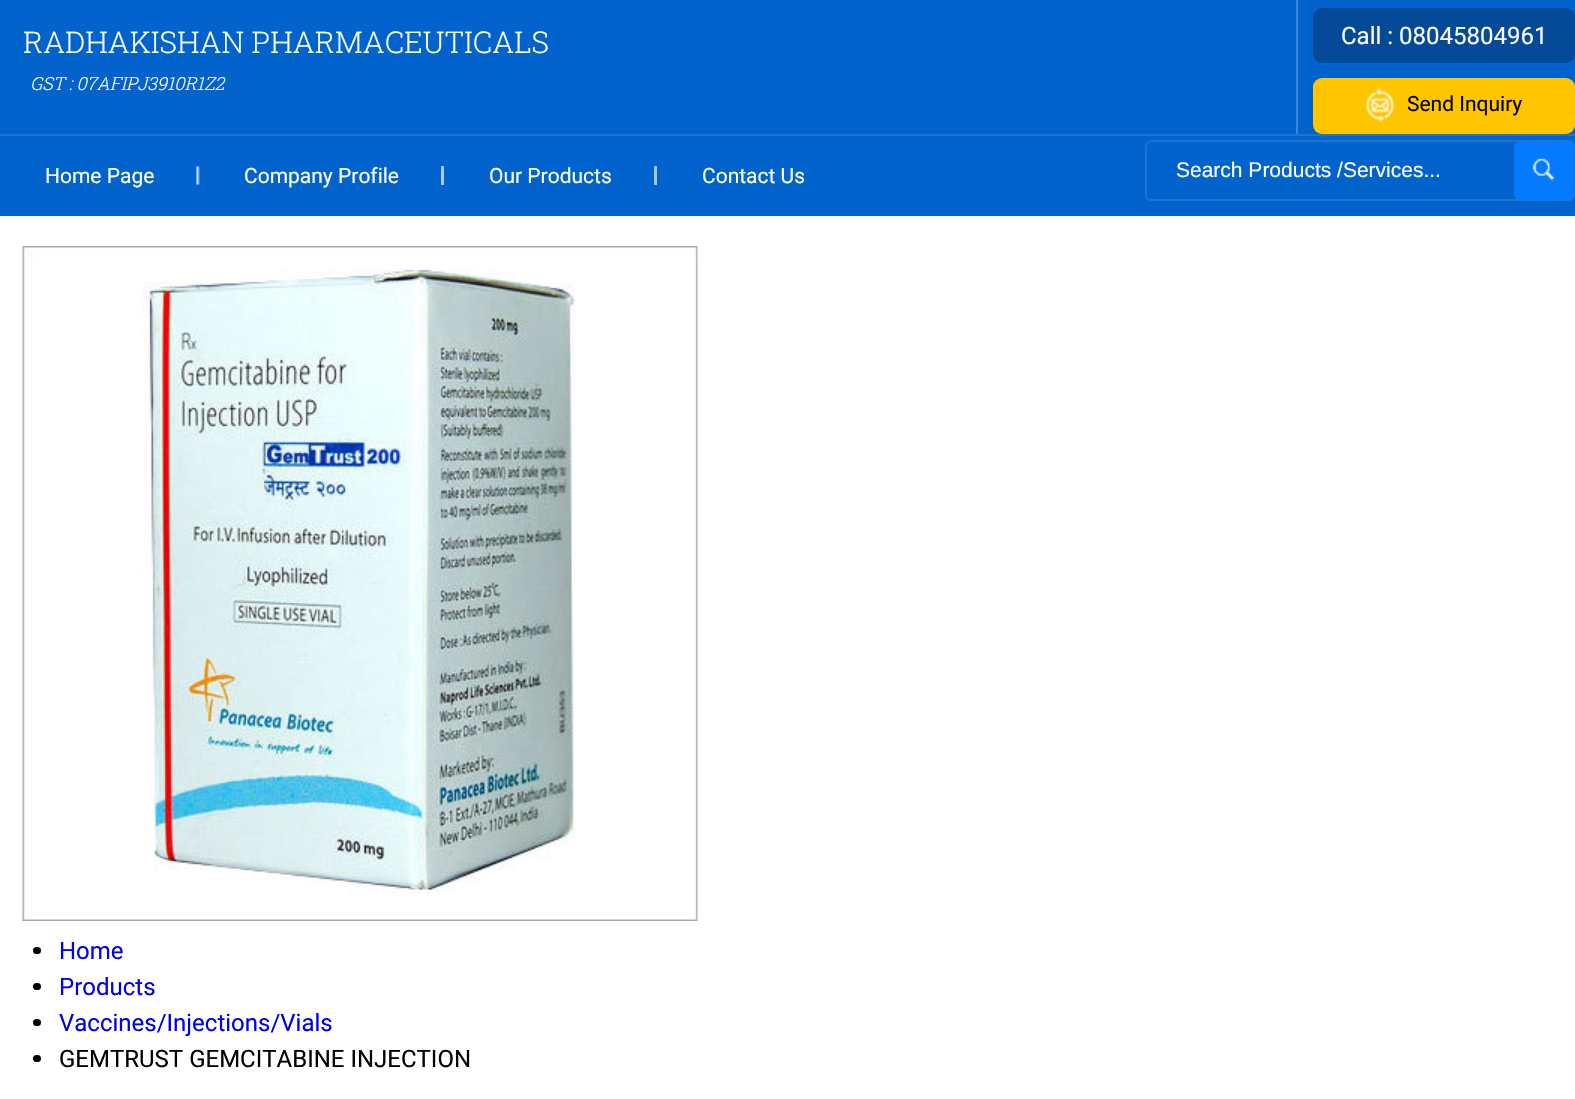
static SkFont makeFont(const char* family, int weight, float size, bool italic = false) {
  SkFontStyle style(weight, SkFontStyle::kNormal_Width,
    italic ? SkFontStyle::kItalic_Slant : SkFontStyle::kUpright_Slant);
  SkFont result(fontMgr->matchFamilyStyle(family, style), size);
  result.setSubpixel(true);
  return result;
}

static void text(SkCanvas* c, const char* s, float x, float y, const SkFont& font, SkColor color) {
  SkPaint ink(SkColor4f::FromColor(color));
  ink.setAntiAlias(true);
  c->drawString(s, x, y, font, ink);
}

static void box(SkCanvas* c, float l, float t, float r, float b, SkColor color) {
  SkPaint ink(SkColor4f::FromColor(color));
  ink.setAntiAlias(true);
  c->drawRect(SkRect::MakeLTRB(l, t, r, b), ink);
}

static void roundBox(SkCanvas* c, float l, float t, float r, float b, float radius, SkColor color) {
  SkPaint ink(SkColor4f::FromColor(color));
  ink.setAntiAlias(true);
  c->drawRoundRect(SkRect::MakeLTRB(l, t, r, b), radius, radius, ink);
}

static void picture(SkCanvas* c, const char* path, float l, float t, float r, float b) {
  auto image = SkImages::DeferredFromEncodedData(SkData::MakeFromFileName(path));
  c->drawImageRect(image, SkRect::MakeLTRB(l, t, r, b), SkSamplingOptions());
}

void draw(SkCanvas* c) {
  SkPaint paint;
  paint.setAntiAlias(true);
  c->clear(0xffffffff);
  box(c, 0, 0, 1575, 134, 0xff0363cd);
  SkFont face1 = makeFont("Roboto Slab", 300, 30);
  text(c, "RADHAKISHAN PHARMACEUTICALS", 23, 53, face1, 0xffffffff);
  SkFont face2 = makeFont("Roboto Slab", 300, 18, true);
  text(c, "GST : 07AFIPJ3910R1Z2", 30, 90, face2, 0xffffffff);
  box(c, 1296, 0, 1298, 134, 0xff3a85d7);
  roundBox(c, 1313, 8, 1575, 63, 9, 0xff044a96);
  SkFont face3 = makeFont("Roboto", 400, 24);
  text(c, "Call : 08045804961", 1341, 44, face3, 0xffffffff);
  roundBox(c, 1313, 78, 1575, 134, 9, 0xffffc600);
  picture(c, "img_01.png", 1366, 88, 1394, 122);
  SkFont face4 = makeFont("Roboto", 400, 21);
  text(c, "Send Inquiry", 1407, 111, face4, 0xff000000);
  box(c, 0, 136, 1575, 216, 0xff0363cd);
  box(c, 0, 134, 1575, 136, 0xff1d73d2);
  picture(c, "img_02.png", 196, 166, 200, 185);
  text(c, "Home Page", 45, 183, face4, 0xffffffff);
  box(c, 441, 166, 444, 185, 0xffa9caee);
  text(c, "Company Profile", 244, 183, face4, 0xffffffff);
  box(c, 654, 166, 657, 185, 0xffa2c5ec);
  text(c, "Our Products", 489, 183, face4, 0xffffffff);
  text(c, "Contact Us", 702, 183, face4, 0xffffffff);
  paint.setStyle(SkPaint::kStroke_Style);
  paint.setStrokeWidth(2);
  paint.setColor(0xff1d73d2);
  c->drawRoundRect(SkRect::MakeLTRB(1146, 141, 1574, 200), 5, 5, paint);
  SkFont face5 = makeFont("Liberation Sans", 400, 21);
  text(c, "Search Products /Services...", 1176, 177, face5, 0xffffffff);
  roundBox(c, 1514, 141, 1574, 200, 6, 0xff047afe);
  picture(c, "img_03.png", 1532, 158, 1555, 181);
  picture(c, "img_04.png", 22, 246, 698, 921);
  roundBox(c, 33, 947, 41, 954, 3.5f, 0xff000000);
  text(c, "Home", 59, 959, face3, 0xff0000ee);
  roundBox(c, 33, 983, 41, 990, 3.5f, 0xff000000);
  text(c, "Products", 59, 995, face3, 0xff0000ee);
  roundBox(c, 33, 1019, 41, 1026, 3.5f, 0xff000000);
  text(c, "Vaccines/Injections/Vials", 59, 1031, face3, 0xff0000ee);
  roundBox(c, 33, 1055, 41, 1062, 3.5f, 0xff000000);
  text(c, "GEMTRUST GEMCITABINE INJECTION", 59, 1067, face3, 0xff000000);
}
